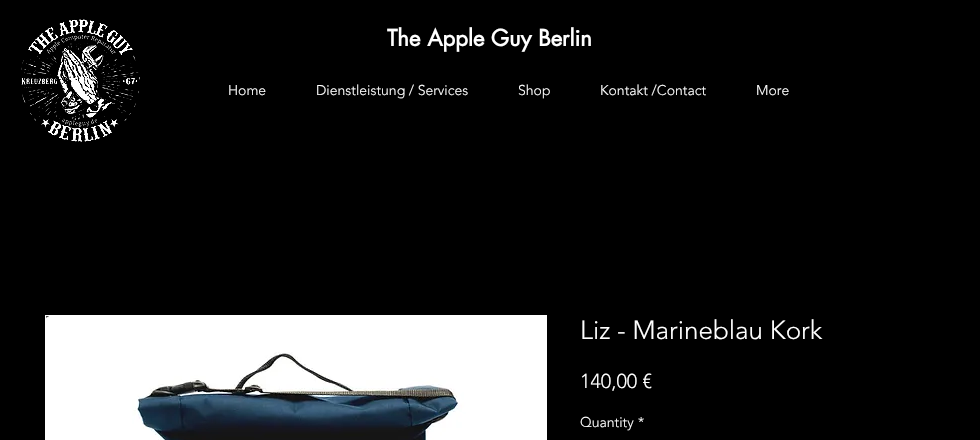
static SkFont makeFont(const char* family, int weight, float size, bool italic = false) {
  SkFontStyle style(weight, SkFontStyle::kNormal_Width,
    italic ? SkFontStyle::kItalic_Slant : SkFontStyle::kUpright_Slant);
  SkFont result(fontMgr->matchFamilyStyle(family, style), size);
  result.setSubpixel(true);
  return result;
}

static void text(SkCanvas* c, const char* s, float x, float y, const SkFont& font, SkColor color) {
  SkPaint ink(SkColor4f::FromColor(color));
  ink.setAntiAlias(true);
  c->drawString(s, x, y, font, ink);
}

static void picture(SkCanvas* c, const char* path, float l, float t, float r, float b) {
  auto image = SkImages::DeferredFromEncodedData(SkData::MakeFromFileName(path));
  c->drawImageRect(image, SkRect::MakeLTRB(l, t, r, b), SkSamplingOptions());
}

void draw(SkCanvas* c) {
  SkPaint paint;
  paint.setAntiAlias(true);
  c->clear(0xff000000);
  picture(c, "img_01.png", 21, 19, 140, 142);
  SkFont face1 = makeFont("futura", 700, 22);
  text(c, "The Apple Guy Berlin", 387, 46, face1, 0xffffffff);
  SkFont face2 = makeFont("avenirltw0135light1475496", 300, 14);
  text(c, "Home", 228, 95, face2, 0xffffffff);
  text(c, "Dienstleistung / Services", 316, 95, face2, 0xffffffff);
  text(c, "Shop", 518, 95, face2, 0xffffffff);
  text(c, "Kontakt /Contact", 600, 95, face2, 0xffffffff);
  text(c, "More", 756, 95, face2, 0xffffffff);
  paint.setStyle(SkPaint::kStroke_Style);
  paint.setStrokeWidth(1);
  paint.setColor(0xffffffff);
  c->drawRect(SkRect::MakeLTRB(45.5f, 315.5f, 546.5f, 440.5f), paint);
  picture(c, "img_02.png", 46, 316, 546, 440);
  SkFont face3 = makeFont("avenirltw0135light1475496", 300, 26);
  text(c, "Liz - Marineblau Kork", 580, 339, face3, 0xffffffff);
  SkFont face4 = makeFont("avenirltw0135light1475496", 300, 20);
  text(c, "140,00 €", 580, 388, face4, 0xffffffff);
  text(c, "Quantity", 580, 427, face2, 0xffffffff);
  text(c, "*", 638, 427, face2, 0xffffffff);
}
